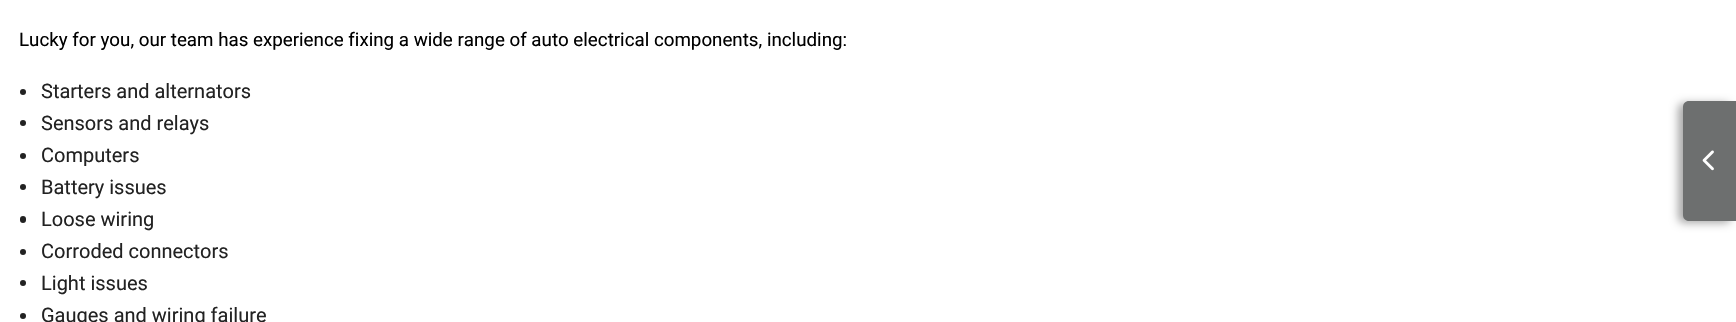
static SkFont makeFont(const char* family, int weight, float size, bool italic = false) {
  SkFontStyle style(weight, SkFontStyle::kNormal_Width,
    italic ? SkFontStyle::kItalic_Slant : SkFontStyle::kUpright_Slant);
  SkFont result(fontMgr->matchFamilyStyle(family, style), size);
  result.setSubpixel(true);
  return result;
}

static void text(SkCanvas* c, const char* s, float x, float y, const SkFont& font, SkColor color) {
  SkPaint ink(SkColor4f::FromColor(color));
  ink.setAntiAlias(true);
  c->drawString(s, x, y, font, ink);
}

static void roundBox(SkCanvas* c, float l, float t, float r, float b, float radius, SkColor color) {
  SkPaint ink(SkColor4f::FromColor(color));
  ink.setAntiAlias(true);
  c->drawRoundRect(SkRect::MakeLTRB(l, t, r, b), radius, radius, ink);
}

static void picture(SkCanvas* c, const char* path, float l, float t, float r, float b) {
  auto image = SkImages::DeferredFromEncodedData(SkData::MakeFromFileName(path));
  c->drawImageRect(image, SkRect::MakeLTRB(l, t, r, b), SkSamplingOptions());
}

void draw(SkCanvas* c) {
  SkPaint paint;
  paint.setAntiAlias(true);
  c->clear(0xffffffff);
  SkFont face1 = makeFont("Roboto", 400, 18.75f);
  text(c, "Lucky for you, our team has experience fixing a wide range of auto electrical components, including:", 19, 46, face1, 0xff000000);
  paint.setColor(0xff222222);
  c->drawCircle(23, 92, 3, paint);
  SkFont face2 = makeFont("Roboto", 400, 20);
  text(c, "Starters and alternators", 41, 98, face2, 0xff222222);
  c->drawCircle(23, 123, 3, paint);
  text(c, "Sensors and relays", 41, 130, face2, 0xff222222);
  c->drawCircle(23, 156, 3, paint);
  text(c, "Computers", 41, 162, face2, 0xff222222);
  c->drawCircle(23, 187, 3, paint);
  text(c, "Battery issues", 41, 194, face2, 0xff222222);
  roundBox(c, 20, 216, 26, 223, 3, 0xff222222);
  text(c, "Loose wiring", 41, 226, face2, 0xff222222);
  c->drawCircle(23, 252, 3, paint);
  text(c, "Corroded connectors", 41, 258, face2, 0xff222222);
  c->drawCircle(23, 283, 3, paint);
  text(c, "Light issues", 41, 290, face2, 0xff222222);
  c->drawCircle(23, 316, 3, paint);
  text(c, "Gauges and wiring failure", 41, 322, face2, 0xff222222);
  paint.setColor(0x57000000);
  paint.setMaskFilter(SkMaskFilter::MakeBlur(kNormal_SkBlurStyle, 4));
  c->drawRoundRect(SkRect::MakeLTRB(1678, 103, 1731, 223), 6, 6, paint);
  paint.setMaskFilter(nullptr);
  paint.setColor(0xff6d6f6f);
  c->drawPath(SkPathBuilder().moveTo(1689, 101).lineTo(1736, 101).lineTo(1736, 221).lineTo(1689, 221).cubicTo(1685.5f, 221, 1683, 218.5f, 1683, 215).lineTo(1683, 107).cubicTo(1683, 103.5f, 1685.5f, 101, 1689, 101).close().detach(), paint);
  picture(c, "img_01.png", 1702, 150, 1714, 171);
}
